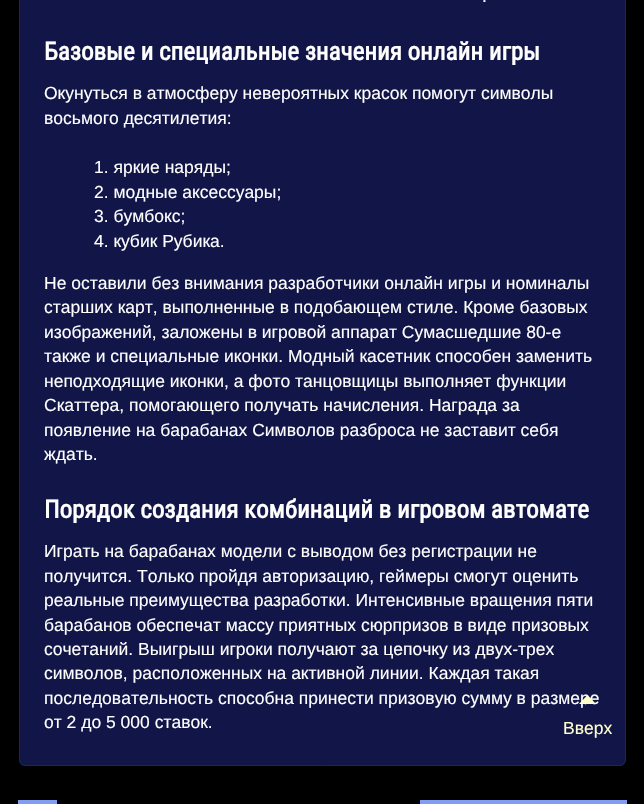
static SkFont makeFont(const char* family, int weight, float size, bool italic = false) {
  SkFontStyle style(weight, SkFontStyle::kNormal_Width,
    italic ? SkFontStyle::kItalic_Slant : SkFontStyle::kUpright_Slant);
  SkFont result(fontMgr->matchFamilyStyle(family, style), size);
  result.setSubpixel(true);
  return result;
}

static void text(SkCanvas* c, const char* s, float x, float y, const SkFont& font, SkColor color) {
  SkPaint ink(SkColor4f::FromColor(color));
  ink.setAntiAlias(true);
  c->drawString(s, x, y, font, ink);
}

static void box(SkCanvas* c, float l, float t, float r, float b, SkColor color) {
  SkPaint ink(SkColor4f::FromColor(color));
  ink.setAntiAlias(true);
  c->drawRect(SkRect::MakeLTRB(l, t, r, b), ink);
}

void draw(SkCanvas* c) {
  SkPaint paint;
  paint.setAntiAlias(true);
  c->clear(0xff000000);
  paint.setColor(0xff111547);
  c->drawRoundRect(SkRect::MakeLTRB(19.5f, -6.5f, 625.5f, 765.5f), 5.5f, 5.5f, paint);
  paint.setStyle(SkPaint::kStroke_Style);
  paint.setStrokeWidth(1);
  paint.setColor(0xff003366);
  c->drawRoundRect(SkRect::MakeLTRB(19.5f, -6.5f, 625.5f, 765.5f), 5.5f, 5.5f, paint);
  SkFont face1 = makeFont("Liberation Sans", 400, 17.5f);
  text(c, ".", 482, 2, face1, 0xffffffff);
  SkFont face2 = makeFont("Roboto Condensed", 700, 25);
  text(c, "Базовые и специальные значения онлайн игры", 44, 60, face2, 0xffffffff);
  text(c, "Окунуться в атмосферу невероятных красок помогут символы", 44, 99, face1, 0xffffffff);
  text(c, "восьмого десятилетия:", 44, 124, face1, 0xffffffff);
  text(c, "1. яркие наряды;", 94, 173, face1, 0xffffffff);
  text(c, "2. модные аксессуары;", 94, 198, face1, 0xffffffff);
  text(c, "3. бумбокс;", 94, 222, face1, 0xffffffff);
  text(c, "4. кубик Рубика.", 94, 247, face1, 0xffffffff);
  text(c, "Не оставили без внимания разработчики онлайн игры и номиналы", 44, 289, face1, 0xffffffff);
  text(c, "старших карт, выполненные в подобающем стиле. Кроме базовых", 44, 313, face1, 0xffffffff);
  text(c, "изображений, заложены в игровой аппарат Сумасшедшие 80-е", 44, 338, face1, 0xffffffff);
  text(c, "также и специальные иконки. Модный касетник способен заменить", 44, 362, face1, 0xffffffff);
  text(c, "неподходящие иконки, а фото танцовщицы выполняет функции", 44, 387, face1, 0xffffffff);
  text(c, "Скаттера, помогающего получать начисления. Награда за", 44, 411, face1, 0xffffffff);
  text(c, "появление на барабанах Символов разброса не заставит себя", 44, 436, face1, 0xffffffff);
  text(c, "ждать.", 44, 460, face1, 0xffffffff);
  text(c, "Порядок создания комбинаций в игровом автомате", 44, 518, face2, 0xffffffff);
  text(c, "Играть на барабанах модели с выводом без регистрации не", 44, 557, face1, 0xffffffff);
  text(c, "получится. Только пройдя авторизацию, геймеры смогут оценить", 44, 582, face1, 0xffffffff);
  text(c, "реальные преимущества разработки. Интенсивные вращения пяти", 44, 606, face1, 0xffffffff);
  text(c, "барабанов обеспечат массу приятных сюрпризов в виде призовых", 44, 631, face1, 0xffffffff);
  text(c, "сочетаний. Выигрыш игроки получают за цепочку из двух-трех", 44, 655, face1, 0xffffffff);
  text(c, "символов, расположенных на активной линии. Каждая такая", 44, 679, face1, 0xffffffff);
  text(c, "последовательность способна принести призовую сумму в размере", 44, 704, face1, 0xffffffff);
  text(c, "от 2 до 5 000 ставок.", 44, 728, face1, 0xffffffff);
  box(c, 18, 800, 57, 804, 0xff819df0);
  box(c, 420, 800, 627, 804, 0xff819df0);
  paint.setStyle(SkPaint::kFill_Style);
  paint.setColor(0xffffffcc);
  c->drawPath(SkPathBuilder().moveTo(596, 704).lineTo(579, 704).lineTo(587.5f, 695).close().detach(), paint);
  text(c, "Вверх", 563, 734, face1, 0xffffffcc);
}
